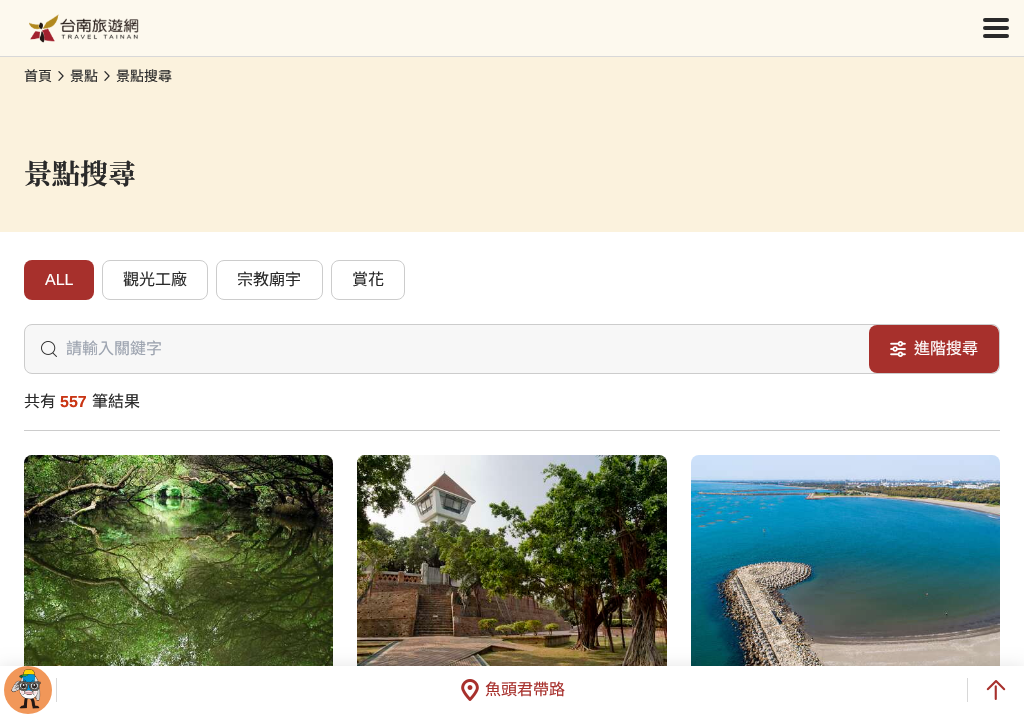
static SkFont makeFont(const char* family, int weight, float size, bool italic = false) {
  SkFontStyle style(weight, SkFontStyle::kNormal_Width,
    italic ? SkFontStyle::kItalic_Slant : SkFontStyle::kUpright_Slant);
  SkFont result(fontMgr->matchFamilyStyle(family, style), size);
  result.setSubpixel(true);
  return result;
}

static void text(SkCanvas* c, const char* s, float x, float y, const SkFont& font, SkColor color) {
  SkPaint ink(SkColor4f::FromColor(color));
  ink.setAntiAlias(true);
  c->drawString(s, x, y, font, ink);
}

static void box(SkCanvas* c, float l, float t, float r, float b, SkColor color) {
  SkPaint ink(SkColor4f::FromColor(color));
  ink.setAntiAlias(true);
  c->drawRect(SkRect::MakeLTRB(l, t, r, b), ink);
}

static void roundBox(SkCanvas* c, float l, float t, float r, float b, float radius, SkColor color) {
  SkPaint ink(SkColor4f::FromColor(color));
  ink.setAntiAlias(true);
  c->drawRoundRect(SkRect::MakeLTRB(l, t, r, b), radius, radius, ink);
}

static void picture(SkCanvas* c, const char* path, float l, float t, float r, float b) {
  auto image = SkImages::DeferredFromEncodedData(SkData::MakeFromFileName(path));
  c->drawImageRect(image, SkRect::MakeLTRB(l, t, r, b), SkSamplingOptions());
}

void draw(SkCanvas* c) {
  SkPaint paint;
  paint.setAntiAlias(true);
  c->clear(0xffffffff);
  box(c, 0, 56, 1024, 57, 0xffd8d8d8);
  box(c, 0, 0, 1024, 56, 0xfffdf9ee);
  picture(c, "img_01.png", 29, 14, 139, 43);
  roundBox(c, 983, 18, 1009, 22, 2, 0xff2a2a2a);
  roundBox(c, 983, 26, 1009, 30, 2, 0xff2a2a2a);
  roundBox(c, 983, 34, 1009, 38, 2, 0xff2a2a2a);
  box(c, 0, 57, 1024, 232, 0xfffbf2dd);
  SkFont face1 = makeFont("Noto Sans CJK TC", 400, 14);
  text(c, "首頁", 24, 81, face1, 0xff2a2a2a);
  picture(c, "img_02.png", 58, 71, 64, 81);
  text(c, "景點", 70, 81, face1, 0xff2a2a2a);
  picture(c, "img_02.png", 104, 71, 110, 81);
  text(c, "景點搜尋", 116, 81, face1, 0xff2a2a2a);
  SkFont face2 = makeFont("Noto Serif TC", 700, 28);
  text(c, "景點搜尋", 24, 184, face2, 0xff2a2a2a);
  roundBox(c, 24, 260, 94, 300, 8, 0xffa7302c);
  SkFont face3 = makeFont("Liberation Sans", 400, 16);
  text(c, "ALL", 45, 285, face3, 0xffffffff);
  paint.setStyle(SkPaint::kStroke_Style);
  paint.setStrokeWidth(1);
  paint.setColor(0xffcccccc);
  c->drawRoundRect(SkRect::MakeLTRB(102.5f, 260.5f, 207.5f, 299.5f), 7.5f, 7.5f, paint);
  SkFont face4 = makeFont("Noto Sans CJK TC", 400, 16);
  text(c, "觀光工廠", 123, 285, face4, 0xff2a2a2a);
  c->drawRoundRect(SkRect::MakeLTRB(216.5f, 260.5f, 322.5f, 299.5f), 7.5f, 7.5f, paint);
  text(c, "宗教廟宇", 237, 285, face4, 0xff2a2a2a);
  c->drawRoundRect(SkRect::MakeLTRB(331.5f, 260.5f, 404.5f, 299.5f), 7.5f, 7.5f, paint);
  text(c, "賞花", 352, 285, face4, 0xff2a2a2a);
  paint.setStyle(SkPaint::kFill_Style);
  paint.setColor(0xfff7f7f7);
  c->drawRoundRect(SkRect::MakeLTRB(24.5f, 324.5f, 999.5f, 373.5f), 7.5f, 7.5f, paint);
  paint.setStyle(SkPaint::kStroke_Style);
  paint.setColor(0xffcccccc);
  c->drawRoundRect(SkRect::MakeLTRB(24.5f, 324.5f, 999.5f, 373.5f), 7.5f, 7.5f, paint);
  picture(c, "img_03.png", 41, 341, 57, 357);
  text(c, "請輸入關鍵字", 66, 354, face4, 0xff9ca3af);
  c->save();
  c->clipPath(SkPathBuilder().moveTo(32, 325).lineTo(992, 325).cubicTo(996, 325, 999, 328, 999, 332).lineTo(999, 366).cubicTo(999, 370, 996, 373, 992, 373).lineTo(32, 373).cubicTo(28, 373, 25, 370, 25, 366).lineTo(25, 332).cubicTo(25, 328, 28, 325, 32, 325).close().detach(), true);
  roundBox(c, 869, 325, 999, 373, 8, 0xffa7302c);
  c->restore();
  picture(c, "img_04.png", 890, 341, 906, 357);
  text(c, "進階搜尋", 914, 354, face4, 0xffffffff);
  box(c, 24, 430, 1000, 431, 0xffcccccc);
  text(c, "共有", 24, 407, face4, 0xff2a2a2a);
  SkFont face5 = makeFont("Liberation Sans", 700, 16);
  text(c, "557", 60, 407, face5, 0xffc93413);
  text(c, "筆結果", 92, 407, face4, 0xff2a2a2a);
  picture(c, "img_05.png", 24, 455, 333, 666);
  picture(c, "img_06.png", 357, 455, 667, 666);
  picture(c, "img_07.png", 691, 455, 1000, 666);
  paint.setStyle(SkPaint::kFill_Style);
  paint.setColor(0x1a000000);
  paint.setMaskFilter(SkMaskFilter::MakeBlur(kNormal_SkBlurStyle, 8));
  c->drawRect(SkRect::MakeLTRB(0, 666, 1024, 714), paint);
  paint.setMaskFilter(nullptr);
  box(c, 0, 666, 1024, 714, 0xffffffff);
  picture(c, "img_08.png", 4, 666, 52, 714);
  box(c, 967, 678, 968, 702, 0xffd8d8d8);
  box(c, 56, 678, 57, 702, 0xffd8d8d8);
  picture(c, "img_09.png", 461, 679, 479, 701);
  text(c, "魚頭君帶路", 485, 695, face4, 0xffa7302c);
  picture(c, "img_10.png", 986, 680, 1006, 700);
}
